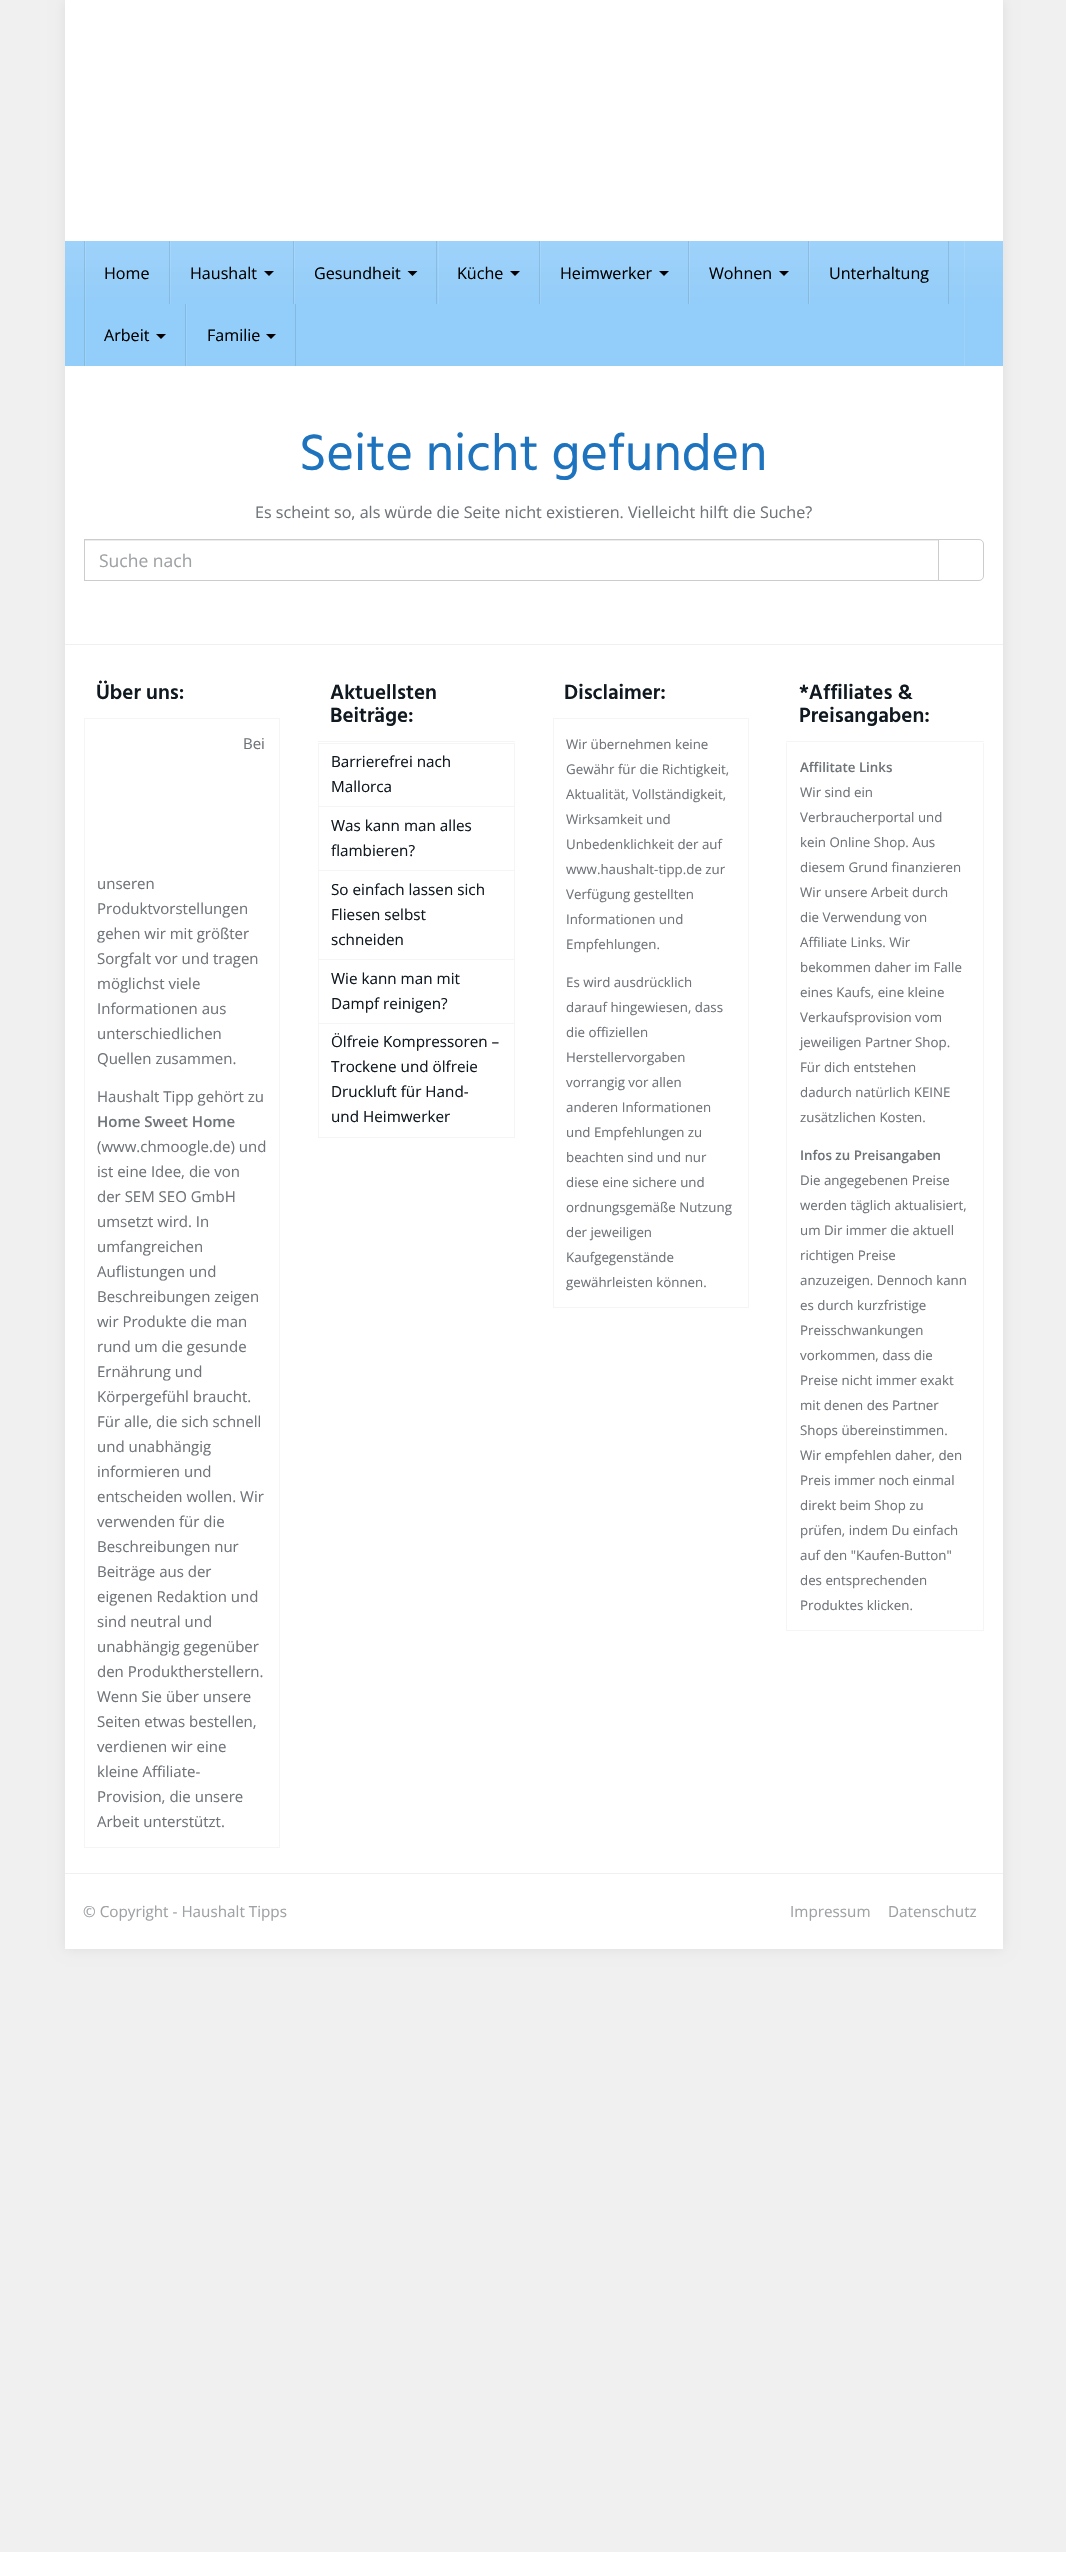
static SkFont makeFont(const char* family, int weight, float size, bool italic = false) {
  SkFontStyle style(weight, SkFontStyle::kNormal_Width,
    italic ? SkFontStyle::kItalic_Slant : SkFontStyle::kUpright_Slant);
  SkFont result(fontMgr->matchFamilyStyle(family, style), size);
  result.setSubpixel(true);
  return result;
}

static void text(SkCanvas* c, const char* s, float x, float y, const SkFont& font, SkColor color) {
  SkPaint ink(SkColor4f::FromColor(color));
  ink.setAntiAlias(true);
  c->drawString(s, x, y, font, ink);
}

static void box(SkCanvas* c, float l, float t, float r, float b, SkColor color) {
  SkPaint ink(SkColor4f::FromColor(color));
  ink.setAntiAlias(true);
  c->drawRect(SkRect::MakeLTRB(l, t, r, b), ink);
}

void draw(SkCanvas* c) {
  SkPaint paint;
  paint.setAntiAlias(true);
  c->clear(0xfff0f0f0);
  paint.setColor(0xffdddddd);
  paint.setMaskFilter(SkMaskFilter::MakeBlur(kNormal_SkBlurStyle, 6));
  c->drawRect(SkRect::MakeLTRB(65, 0, 1003, 1949), paint);
  paint.setMaskFilter(nullptr);
  box(c, 65, 0, 1003, 1949, 0xffffffff);
  {
    const SkColor colors[] = {0xff9ed2fa, 0xff93cdf9};
    const float stops[] = {0, 0.5f};
    const SkPoint ends[] = {{534, 241}, {534, 366}};
    paint.setShader(SkGradientShader::MakeLinear(ends, colors, stops, 2, SkTileMode::kClamp));
    paint.setAlpha(255);
  }
  c->drawRect(SkRect::MakeLTRB(65, 241, 1003, 366), paint);
  {
    const SkColor colors[] = {0xffa8d7fb, 0xff9ed2fa};
    const float stops[] = {0, 0.5f};
    const SkPoint ends[] = {{534, 241}, {534, 366}};
    paint.setShader(SkGradientShader::MakeLinear(ends, colors, stops, 2, SkTileMode::kClamp));
    paint.setAlpha(255);
  }
  c->drawRect(SkRect::MakeLTRB(809, 241, 810, 304), paint);
  {
    const SkColor colors[] = {0xff8ebde1, 0xff84b9e0};
    const float stops[] = {0, 0.5f};
    const SkPoint ends[] = {{534, 241}, {534, 366}};
    paint.setShader(SkGradientShader::MakeLinear(ends, colors, stops, 2, SkTileMode::kClamp));
    paint.setAlpha(255);
  }
  c->drawRect(SkRect::MakeLTRB(948, 241, 949, 304), paint);
  {
    const SkColor colors[] = {0xffa8d7fb, 0xff9ed2fa};
    const float stops[] = {0, 0.5f};
    const SkPoint ends[] = {{534, 241}, {534, 366}};
    paint.setShader(SkGradientShader::MakeLinear(ends, colors, stops, 2, SkTileMode::kClamp));
    paint.setAlpha(255);
  }
  c->drawRect(SkRect::MakeLTRB(689, 241, 690, 304), paint);
  {
    const SkColor colors[] = {0xff8ebde1, 0xff84b9e0};
    const float stops[] = {0, 0.5f};
    const SkPoint ends[] = {{534, 241}, {534, 366}};
    paint.setShader(SkGradientShader::MakeLinear(ends, colors, stops, 2, SkTileMode::kClamp));
    paint.setAlpha(255);
  }
  c->drawRect(SkRect::MakeLTRB(808, 241, 809, 304), paint);
  {
    const SkColor colors[] = {0xffa8d7fb, 0xff9ed2fa};
    const float stops[] = {0, 0.5f};
    const SkPoint ends[] = {{534, 241}, {534, 366}};
    paint.setShader(SkGradientShader::MakeLinear(ends, colors, stops, 2, SkTileMode::kClamp));
    paint.setAlpha(255);
  }
  c->drawRect(SkRect::MakeLTRB(540, 241, 541, 304), paint);
  {
    const SkColor colors[] = {0xff8ebde1, 0xff84b9e0};
    const float stops[] = {0, 0.5f};
    const SkPoint ends[] = {{534, 241}, {534, 366}};
    paint.setShader(SkGradientShader::MakeLinear(ends, colors, stops, 2, SkTileMode::kClamp));
    paint.setAlpha(255);
  }
  c->drawRect(SkRect::MakeLTRB(688, 241, 689, 304), paint);
  {
    const SkColor colors[] = {0xffa8d7fb, 0xff9ed2fa};
    const float stops[] = {0, 0.5f};
    const SkPoint ends[] = {{534, 241}, {534, 366}};
    paint.setShader(SkGradientShader::MakeLinear(ends, colors, stops, 2, SkTileMode::kClamp));
    paint.setAlpha(255);
  }
  c->drawRect(SkRect::MakeLTRB(438, 241, 439, 304), paint);
  {
    const SkColor colors[] = {0xff8ebde1, 0xff84b9e0};
    const float stops[] = {0, 0.5f};
    const SkPoint ends[] = {{534, 241}, {534, 366}};
    paint.setShader(SkGradientShader::MakeLinear(ends, colors, stops, 2, SkTileMode::kClamp));
    paint.setAlpha(255);
  }
  c->drawRect(SkRect::MakeLTRB(539, 241, 540, 304), paint);
  {
    const SkColor colors[] = {0xffa8d7fb, 0xff9ed2fa};
    const float stops[] = {0, 0.5f};
    const SkPoint ends[] = {{534, 241}, {534, 366}};
    paint.setShader(SkGradientShader::MakeLinear(ends, colors, stops, 2, SkTileMode::kClamp));
    paint.setAlpha(255);
  }
  c->drawRect(SkRect::MakeLTRB(294, 241, 295, 304), paint);
  {
    const SkColor colors[] = {0xff8ebde1, 0xff84b9e0};
    const float stops[] = {0, 0.5f};
    const SkPoint ends[] = {{534, 241}, {534, 366}};
    paint.setShader(SkGradientShader::MakeLinear(ends, colors, stops, 2, SkTileMode::kClamp));
    paint.setAlpha(255);
  }
  c->drawRect(SkRect::MakeLTRB(436, 241, 437, 304), paint);
  {
    const SkColor colors[] = {0xffa8d7fb, 0xff9ed2fa};
    const float stops[] = {0, 0.5f};
    const SkPoint ends[] = {{534, 241}, {534, 366}};
    paint.setShader(SkGradientShader::MakeLinear(ends, colors, stops, 2, SkTileMode::kClamp));
    paint.setAlpha(255);
  }
  c->drawRect(SkRect::MakeLTRB(170, 241, 171, 304), paint);
  {
    const SkColor colors[] = {0xff8ebde1, 0xff84b9e0};
    const float stops[] = {0, 0.5f};
    const SkPoint ends[] = {{534, 241}, {534, 366}};
    paint.setShader(SkGradientShader::MakeLinear(ends, colors, stops, 2, SkTileMode::kClamp));
    paint.setAlpha(255);
  }
  c->drawRect(SkRect::MakeLTRB(293, 241, 294, 304), paint);
  {
    const SkColor colors[] = {0xffa8d7fb, 0xff9ed2fa};
    const float stops[] = {0, 0.5f};
    const SkPoint ends[] = {{534, 241}, {534, 366}};
    paint.setShader(SkGradientShader::MakeLinear(ends, colors, stops, 2, SkTileMode::kClamp));
    paint.setAlpha(255);
  }
  c->drawRect(SkRect::MakeLTRB(85, 241, 86, 304), paint);
  {
    const SkColor colors[] = {0xff8ebde1, 0xff84b9e0};
    const float stops[] = {0, 0.5f};
    const SkPoint ends[] = {{534, 241}, {534, 366}};
    paint.setShader(SkGradientShader::MakeLinear(ends, colors, stops, 2, SkTileMode::kClamp));
    paint.setAlpha(255);
  }
  c->drawRect(SkRect::MakeLTRB(169, 241, 170, 304), paint);
  c->drawRect(SkRect::MakeLTRB(84, 241, 85, 366), paint);
  {
    const SkColor colors[] = {0xffa8d7fb, 0xff9ed2fa};
    const float stops[] = {0, 0.5f};
    const SkPoint ends[] = {{534, 241}, {534, 366}};
    paint.setShader(SkGradientShader::MakeLinear(ends, colors, stops, 2, SkTileMode::kClamp));
    paint.setAlpha(255);
  }
  c->drawRect(SkRect::MakeLTRB(964, 241, 965, 366), paint);
  SkFont face1 = makeFont("Open Sans", 400, 16.1f);
  text(c, "Home", 104, 279, face1, 0xff000000);
  text(c, "Haushalt", 190, 279, face1, 0xff000000);
  paint.setShader(nullptr);
  paint.setColor(0xff000000);
  c->drawPath(SkPathBuilder().moveTo(264, 271).lineTo(274, 271).lineTo(269, 276).close().detach(), paint);
  text(c, "Gesundheit", 314, 279, face1, 0xff000000);
  c->drawPath(SkPathBuilder().moveTo(407.5f, 271).lineTo(417.5f, 271).lineTo(412.5f, 276).close().detach(), paint);
  text(c, "Küche", 457, 279, face1, 0xff000000);
  c->drawPath(SkPathBuilder().moveTo(510, 271).lineTo(520, 271).lineTo(515, 276).close().detach(), paint);
  text(c, "Heimwerker", 560, 279, face1, 0xff000000);
  c->drawPath(SkPathBuilder().moveTo(659, 271).lineTo(669, 271).lineTo(664, 276).close().detach(), paint);
  text(c, "Wohnen", 709, 279, face1, 0xff000000);
  c->drawPath(SkPathBuilder().moveTo(779, 271).lineTo(789, 271).lineTo(784, 276).close().detach(), paint);
  text(c, "Unterhaltung", 829, 279, face1, 0xff000000);
  box(c, 185, 304, 186, 366, 0xff84b9e0);
  box(c, 85, 304, 86, 366, 0xff9ed2fa);
  text(c, "Arbeit", 104, 341, face1, 0xff000000);
  c->drawPath(SkPathBuilder().moveTo(156, 334).lineTo(166, 334).lineTo(161, 339).close().detach(), paint);
  box(c, 295, 304, 296, 366, 0xff84b9e0);
  box(c, 186, 304, 187, 366, 0xff9ed2fa);
  text(c, "Familie", 207, 341, face1, 0xff000000);
  c->drawPath(SkPathBuilder().moveTo(266, 334).lineTo(276, 334).lineTo(271, 339).close().detach(), paint);
  SkFont face2 = makeFont("Hind", 400, 52.5f);
  text(c, "Seite nicht gefunden", 299, 470, face2, 0xff1e73be);
  text(c, "Es scheint so, als würde die Seite nicht existieren. Vielleicht hilft die Suche?", 255, 518, face1, 0xff6f7479);
  box(c, 85, 540, 938, 541, 0xffececec);
  paint.setStyle(SkPaint::kStroke_Style);
  paint.setStrokeWidth(1);
  paint.setColor(0xffcccccc);
  c->drawRect(SkRect::MakeLTRB(84.5f, 539.5f, 938.5f, 580.5f), paint);
  SkFont face3 = makeFont("Open Sans", 400, 17.5f);
  text(c, "Suche nach", 99, 567, face3, 0xff9fa2a5);
  paint.setStyle(SkPaint::kFill_Style);
  paint.setColor(0xffffffff);
  c->drawPath(SkPathBuilder().moveTo(938.5f, 539.5f).lineTo(979, 539.5f).cubicTo(981.5f, 539.5f, 983.5f, 541.5f, 983.5f, 544).lineTo(983.5f, 576).cubicTo(983.5f, 578.5f, 981.5f, 580.5f, 979, 580.5f).lineTo(938.5f, 580.5f).close().detach(), paint);
  paint.setStyle(SkPaint::kStroke_Style);
  paint.setColor(0xffcccccc);
  c->drawPath(SkPathBuilder().moveTo(938.5f, 539.5f).lineTo(979, 539.5f).cubicTo(981.5f, 539.5f, 983.5f, 541.5f, 983.5f, 544).lineTo(983.5f, 576).cubicTo(983.5f, 578.5f, 981.5f, 580.5f, 979, 580.5f).lineTo(938.5f, 580.5f).close().detach(), paint);
  box(c, 65, 644, 1003, 645, 0xfff0f0f0);
  paint.setColor(0xfff5f5f5);
  c->drawRect(SkRect::MakeLTRB(84.5f, 670.5f, 279.5f, 1847.5f), paint);
  box(c, 84, 670, 280, 718, 0xffffffff);
  box(c, 84, 718, 280, 719, 0xfff5f5f5);
  SkFont face4 = makeFont("Hind", 600, 21);
  text(c, "Über uns:", 96, 699, face4, 0xff101820);
  SkFont face5 = makeFont("Open Sans", 400, 15);
  text(c, "Bei", 243, 749, face5, 0xff6f7479);
  text(c, "unseren", 97, 889, face5, 0xff6f7479);
  text(c, "Produktvorstellungen", 97, 914, face5, 0xff6f7479);
  text(c, "gehen wir mit größter", 97, 939, face5, 0xff6f7479);
  text(c, "Sorgfalt vor und tragen", 97, 964, face5, 0xff6f7479);
  text(c, "möglichst viele", 97, 989, face5, 0xff6f7479);
  text(c, "Informationen aus", 97, 1014, face5, 0xff6f7479);
  text(c, "unterschiedlichen", 97, 1039, face5, 0xff6f7479);
  text(c, "Quellen zusammen.", 97, 1064, face5, 0xff6f7479);
  text(c, "Haushalt Tipp gehört zu", 97, 1102, face5, 0xff6f7479);
  SkFont face6 = makeFont("Open Sans", 600, 15);
  text(c, "Home Sweet Home", 97, 1127, face6, 0xff6f7479);
  text(c, "(www.chmoogle.de) und", 97, 1152, face5, 0xff6f7479);
  text(c, "ist eine Idee, die von", 97, 1177, face5, 0xff6f7479);
  text(c, "der SEM SEO GmbH", 97, 1202, face5, 0xff6f7479);
  text(c, "umsetzt wird. In", 97, 1227, face5, 0xff6f7479);
  text(c, "umfangreichen", 97, 1252, face5, 0xff6f7479);
  text(c, "Auflistungen und", 97, 1277, face5, 0xff6f7479);
  text(c, "Beschreibungen zeigen", 97, 1302, face5, 0xff6f7479);
  text(c, "wir Produkte die man", 97, 1327, face5, 0xff6f7479);
  text(c, "rund um die gesunde", 97, 1352, face5, 0xff6f7479);
  text(c, "Ernährung und", 97, 1377, face5, 0xff6f7479);
  text(c, "Körpergefühl braucht.", 97, 1402, face5, 0xff6f7479);
  text(c, "Für alle, die sich schnell", 97, 1427, face5, 0xff6f7479);
  text(c, "und unabhängig", 97, 1452, face5, 0xff6f7479);
  text(c, "informieren und", 97, 1477, face5, 0xff6f7479);
  text(c, "entscheiden wollen. Wir", 97, 1502, face5, 0xff6f7479);
  text(c, "verwenden für die", 97, 1527, face5, 0xff6f7479);
  text(c, "Beschreibungen nur", 97, 1552, face5, 0xff6f7479);
  text(c, "Beiträge aus der", 97, 1577, face5, 0xff6f7479);
  text(c, "eigenen Redaktion und", 97, 1602, face5, 0xff6f7479);
  text(c, "sind neutral und", 97, 1627, face5, 0xff6f7479);
  text(c, "unabhängig gegenüber", 97, 1652, face5, 0xff6f7479);
  text(c, "den Produktherstellern.", 97, 1677, face5, 0xff6f7479);
  text(c, "Wenn Sie über unsere", 97, 1702, face5, 0xff6f7479);
  text(c, "Seiten etwas bestellen,", 97, 1727, face5, 0xff6f7479);
  text(c, "verdienen wir eine", 97, 1752, face5, 0xff6f7479);
  text(c, "kleine Affiliate-", 97, 1777, face5, 0xff6f7479);
  text(c, "Provision, die unsere", 97, 1802, face5, 0xff6f7479);
  text(c, "Arbeit unterstützt.", 97, 1827, face5, 0xff6f7479);
  c->drawRect(SkRect::MakeLTRB(318.5f, 670.5f, 514.5f, 1137.5f), paint);
  box(c, 318, 670, 515, 743, 0xffffffff);
  box(c, 318, 741, 515, 742, 0xfff5f5f5);
  text(c, "Aktuellsten", 330, 699, face4, 0xff101820);
  text(c, "Beiträge:", 330, 722, face4, 0xff101820);
  box(c, 319, 743, 514, 744, 0xfff5f5f5);
  SkFont face7 = makeFont("Open Sans", 400, 15.25f);
  text(c, "Barrierefrei nach", 331, 767, face7, 0xff101820);
  text(c, "Mallorca", 331, 792, face7, 0xff101820);
  box(c, 319, 806, 514, 807, 0xfff5f5f5);
  text(c, "Was kann man alles", 331, 831, face7, 0xff101820);
  text(c, "flambieren?", 331, 856, face7, 0xff101820);
  box(c, 319, 870, 514, 871, 0xfff5f5f5);
  text(c, "So einfach lassen sich", 331, 895, face7, 0xff101820);
  text(c, "Fliesen selbst", 331, 920, face7, 0xff101820);
  text(c, "schneiden", 331, 945, face7, 0xff101820);
  box(c, 319, 959, 514, 960, 0xfff5f5f5);
  text(c, "Wie kann man mit", 331, 984, face7, 0xff101820);
  text(c, "Dampf reinigen?", 331, 1009, face7, 0xff101820);
  box(c, 319, 1023, 514, 1024, 0xfff5f5f5);
  text(c, "Ölfreie Kompressoren –", 331, 1047, face7, 0xff101820);
  text(c, "Trockene und ölfreie", 331, 1072, face7, 0xff101820);
  text(c, "Druckluft für Hand-", 331, 1097, face7, 0xff101820);
  text(c, "und Heimwerker", 331, 1122, face7, 0xff101820);
  c->drawRect(SkRect::MakeLTRB(553.5f, 670.5f, 748.5f, 1307.5f), paint);
  box(c, 553, 670, 749, 718, 0xffffffff);
  box(c, 553, 718, 749, 719, 0xfff5f5f5);
  text(c, "Disclaimer:", 564, 699, face4, 0xff101820);
  SkFont face8 = makeFont("Open Sans", 400, 13.3f);
  text(c, "Wir übernehmen keine", 566, 749, face8, 0xff6f7479);
  text(c, "Gewähr für die Richtigkeit,", 566, 774, face8, 0xff6f7479);
  text(c, "Aktualität, Vollständigkeit,", 566, 799, face8, 0xff6f7479);
  text(c, "Wirksamkeit und", 566, 824, face8, 0xff6f7479);
  text(c, "Unbedenklichkeit der auf", 566, 849, face8, 0xff6f7479);
  text(c, "www.haushalt-tipp.de zur", 566, 874, face8, 0xff6f7479);
  text(c, "Verfügung gestellten", 566, 899, face8, 0xff6f7479);
  text(c, "Informationen und", 566, 924, face8, 0xff6f7479);
  text(c, "Empfehlungen.", 566, 949, face8, 0xff6f7479);
  text(c, "Es wird ausdrücklich", 566, 987, face8, 0xff6f7479);
  text(c, "darauf hingewiesen, dass", 566, 1012, face8, 0xff6f7479);
  text(c, "die offiziellen", 566, 1037, face8, 0xff6f7479);
  text(c, "Herstellervorgaben", 566, 1062, face8, 0xff6f7479);
  text(c, "vorrangig vor allen", 566, 1087, face8, 0xff6f7479);
  text(c, "anderen Informationen", 566, 1112, face8, 0xff6f7479);
  text(c, "und Empfehlungen zu", 566, 1137, face8, 0xff6f7479);
  text(c, "beachten sind und nur", 566, 1162, face8, 0xff6f7479);
  text(c, "diese eine sichere und", 566, 1187, face8, 0xff6f7479);
  text(c, "ordnungsgemäße Nutzung", 566, 1212, face8, 0xff6f7479);
  text(c, "der jeweiligen", 566, 1237, face8, 0xff6f7479);
  text(c, "Kaufgegenstände", 566, 1262, face8, 0xff6f7479);
  text(c, "gewährleisten können.", 566, 1287, face8, 0xff6f7479);
  c->drawRect(SkRect::MakeLTRB(786.5f, 670.5f, 983.5f, 1630.5f), paint);
  box(c, 786, 670, 984, 743, 0xffffffff);
  box(c, 786, 741, 984, 742, 0xfff5f5f5);
  text(c, "*Affiliates &", 799, 699, face4, 0xff101820);
  text(c, "Preisangaben:", 799, 722, face4, 0xff101820);
  SkFont face9 = makeFont("Open Sans", 600, 13.3f);
  text(c, "Affilitate Links", 800, 772, face9, 0xff6f7479);
  text(c, "Wir sind ein", 800, 797, face8, 0xff6f7479);
  text(c, "Verbraucherportal und", 800, 822, face8, 0xff6f7479);
  text(c, "kein Online Shop. Aus", 800, 847, face8, 0xff6f7479);
  text(c, "diesem Grund finanzieren", 800, 872, face8, 0xff6f7479);
  text(c, "Wir unsere Arbeit durch", 800, 897, face8, 0xff6f7479);
  text(c, "die Verwendung von", 800, 922, face8, 0xff6f7479);
  text(c, "Affiliate Links. Wir", 800, 947, face8, 0xff6f7479);
  text(c, "bekommen daher im Falle", 800, 972, face8, 0xff6f7479);
  text(c, "eines Kaufs, eine kleine", 800, 997, face8, 0xff6f7479);
  text(c, "Verkaufsprovision vom", 800, 1022, face8, 0xff6f7479);
  text(c, "jeweiligen Partner Shop.", 800, 1047, face8, 0xff6f7479);
  text(c, "Für dich entstehen", 800, 1072, face8, 0xff6f7479);
  text(c, "dadurch natürlich KEINE", 800, 1097, face8, 0xff6f7479);
  text(c, "zusätzlichen Kosten.", 800, 1122, face8, 0xff6f7479);
  text(c, "Infos zu Preisangaben", 800, 1160, face9, 0xff6f7479);
  text(c, "Die angegebenen Preise", 800, 1185, face8, 0xff6f7479);
  text(c, "werden täglich aktualisiert,", 800, 1210, face8, 0xff6f7479);
  text(c, "um Dir immer die aktuell", 800, 1235, face8, 0xff6f7479);
  text(c, "richtigen Preise", 800, 1260, face8, 0xff6f7479);
  text(c, "anzuzeigen. Dennoch kann", 800, 1285, face8, 0xff6f7479);
  text(c, "es durch kurzfristige", 800, 1310, face8, 0xff6f7479);
  text(c, "Preisschwankungen", 800, 1335, face8, 0xff6f7479);
  text(c, "vorkommen, dass die", 800, 1360, face8, 0xff6f7479);
  text(c, "Preise nicht immer exakt", 800, 1385, face8, 0xff6f7479);
  text(c, "mit denen des Partner", 800, 1410, face8, 0xff6f7479);
  text(c, "Shops übereinstimmen.", 800, 1435, face8, 0xff6f7479);
  text(c, "Wir empfehlen daher, den", 800, 1460, face8, 0xff6f7479);
  text(c, "Preis immer noch einmal", 800, 1485, face8, 0xff6f7479);
  text(c, "direkt beim Shop zu", 800, 1510, face8, 0xff6f7479);
  text(c, "prüfen, indem Du einfach", 800, 1535, face8, 0xff6f7479);
  text(c, "auf den \"Kaufen-Button\"", 800, 1560, face8, 0xff6f7479);
  text(c, "des entsprechenden", 800, 1585, face8, 0xff6f7479);
  text(c, "Produktes klicken.", 800, 1610, face8, 0xff6f7479);
  box(c, 65, 1873, 1003, 1874, 0xfff0f0f0);
  text(c, "© Copyright - Haushalt Tipps", 83, 1917, face7, 0xff9fa2a5);
  text(c, "Impressum", 790, 1917, face7, 0xff9fa2a5);
  text(c, "Datenschutz", 888, 1917, face7, 0xff9fa2a5);
}
